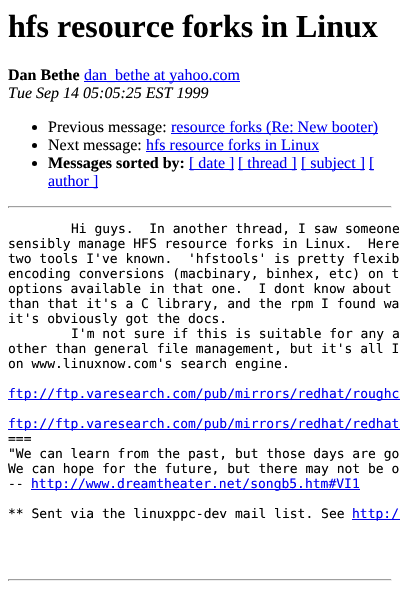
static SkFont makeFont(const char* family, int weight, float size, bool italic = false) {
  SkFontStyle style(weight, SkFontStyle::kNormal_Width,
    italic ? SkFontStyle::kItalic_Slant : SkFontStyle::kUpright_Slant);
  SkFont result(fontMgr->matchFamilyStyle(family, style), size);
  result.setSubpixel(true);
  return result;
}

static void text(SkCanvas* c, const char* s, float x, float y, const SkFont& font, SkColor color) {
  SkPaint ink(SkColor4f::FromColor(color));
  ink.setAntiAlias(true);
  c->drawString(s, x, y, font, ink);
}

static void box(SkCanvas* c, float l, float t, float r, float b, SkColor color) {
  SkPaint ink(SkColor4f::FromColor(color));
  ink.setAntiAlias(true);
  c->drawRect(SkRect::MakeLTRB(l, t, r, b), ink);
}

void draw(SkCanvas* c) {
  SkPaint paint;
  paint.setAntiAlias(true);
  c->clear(0xffffffff);
  SkFont face1 = makeFont("Liberation Serif", 700, 32);
  text(c, "hfs resource forks in Linux", 8, 37, face1, 0xff000000);
  SkFont face2 = makeFont("Liberation Serif", 700, 16);
  text(c, "Dan Bethe", 8, 80, face2, 0xff000000);
  box(c, 84, 81, 240, 82, 0xff0000ee);
  SkFont face3 = makeFont("Liberation Serif", 400, 16);
  text(c, "dan_bethe at yahoo.com", 84, 80, face3, 0xff0000ee);
  SkFont face4 = makeFont("Liberation Serif", 400, 16, true);
  text(c, "Tue Sep 14 05:05:25 EST 1999", 8, 98, face4, 0xff000000);
  paint.setColor(0xff000000);
  c->drawCircle(34.5f, 127.5f, 2.5f, paint);
  text(c, "Previous message:", 48, 132, face3, 0xff000000);
  box(c, 171, 133, 378, 134, 0xff0000ee);
  text(c, "resource forks (Re: New booter)", 171, 132, face3, 0xff0000ee);
  c->drawCircle(34.5f, 145.5f, 2.5f, paint);
  text(c, "Next message:", 48, 150, face3, 0xff000000);
  text(c, "hfs resource forks in Linux", 146, 150, face3, 0xff0000ee);
  box(c, 146, 151, 319, 152, 0xff0000ee);
  c->drawCircle(34.5f, 163.5f, 2.5f, paint);
  text(c, "Messages sorted by:", 48, 168, face2, 0xff000000);
  box(c, 189, 169, 234, 170, 0xff0000ee);
  text(c, "[ date ]", 189, 168, face3, 0xff0000ee);
  box(c, 238, 169, 297, 170, 0xff0000ee);
  text(c, "[ thread ]", 238, 168, face3, 0xff0000ee);
  box(c, 301, 169, 365, 170, 0xff0000ee);
  text(c, "[ subject ]", 301, 168, face3, 0xff0000ee);
  box(c, 369, 169, 374, 170, 0xff0000ee);
  text(c, "[", 369, 168, face3, 0xff0000ee);
  box(c, 48, 187, 98, 188, 0xff0000ee);
  text(c, "author ]", 48, 186, face3, 0xff0000ee);
  box(c, 8, 206, 392, 207, 0xff9f9f9f);
  box(c, 391, 206, 392, 208, 0xffeeeeee);
  box(c, 8, 207, 392, 208, 0xffeeeeee);
  box(c, 8, 206, 9, 208, 0xff9f9f9f);
  SkFont face5 = makeFont("DejaVu Sans Mono", 400, 13);
  text(c, "Hi guys.  In another thread, I saw someone", 71, 233, face5, 0xff000000);
  text(c, "sensibly manage HFS resource forks in Linux.  Here", 8, 248, face5, 0xff000000);
  text(c, "two tools I've known.  'hfstools' is pretty flexib", 8, 263, face5, 0xff000000);
  text(c, "encoding conversions (macbinary, binhex, etc) on t", 8, 278, face5, 0xff000000);
  text(c, "options available in that one.  I dont know about", 8, 293, face5, 0xff000000);
  text(c, "than that it's a C library, and the rpm I found wa", 8, 308, face5, 0xff000000);
  text(c, "it's obviously got the docs.", 8, 323, face5, 0xff000000);
  text(c, "I'm not sure if this is suitable for any a", 71, 338, face5, 0xff000000);
  text(c, "other than general file management, but it's all I", 8, 353, face5, 0xff000000);
  text(c, "on www.linuxnow.com's search engine.", 8, 368, face5, 0xff000000);
  box(c, 8, 399, 400, 400, 0xff0000ee);
  text(c, "ftp://ftp.varesearch.com/pub/mirrors/redhat/roughc", 8, 398, face5, 0xff0000ee);
  box(c, 8, 429, 400, 430, 0xff0000ee);
  text(c, "ftp://ftp.varesearch.com/pub/mirrors/redhat/redhat", 8, 428, face5, 0xff0000ee);
  text(c, "===", 8, 443, face5, 0xff000000);
  text(c, "\"We can learn from the past, but those days are go", 8, 458, face5, 0xff000000);
  text(c, "We can hope for the future, but there may not be o", 8, 473, face5, 0xff000000);
  text(c, "--", 8, 488, face5, 0xff000000);
  box(c, 31, 489, 360, 490, 0xff0000ee);
  text(c, "http://www.dreamtheater.net/songb5.htm#VI1", 31, 488, face5, 0xff0000ee);
  text(c, "** Sent via the linuxppc-dev mail list. See", 8, 518, face5, 0xff000000);
  box(c, 352, 519, 400, 520, 0xff0000ee);
  text(c, "http:/", 352, 518, face5, 0xff0000ee);
  box(c, 8, 579, 392, 580, 0xff9f9f9f);
  box(c, 391, 579, 392, 581, 0xffeeeeee);
  box(c, 8, 580, 392, 581, 0xffeeeeee);
  box(c, 8, 579, 9, 581, 0xff9f9f9f);
}
